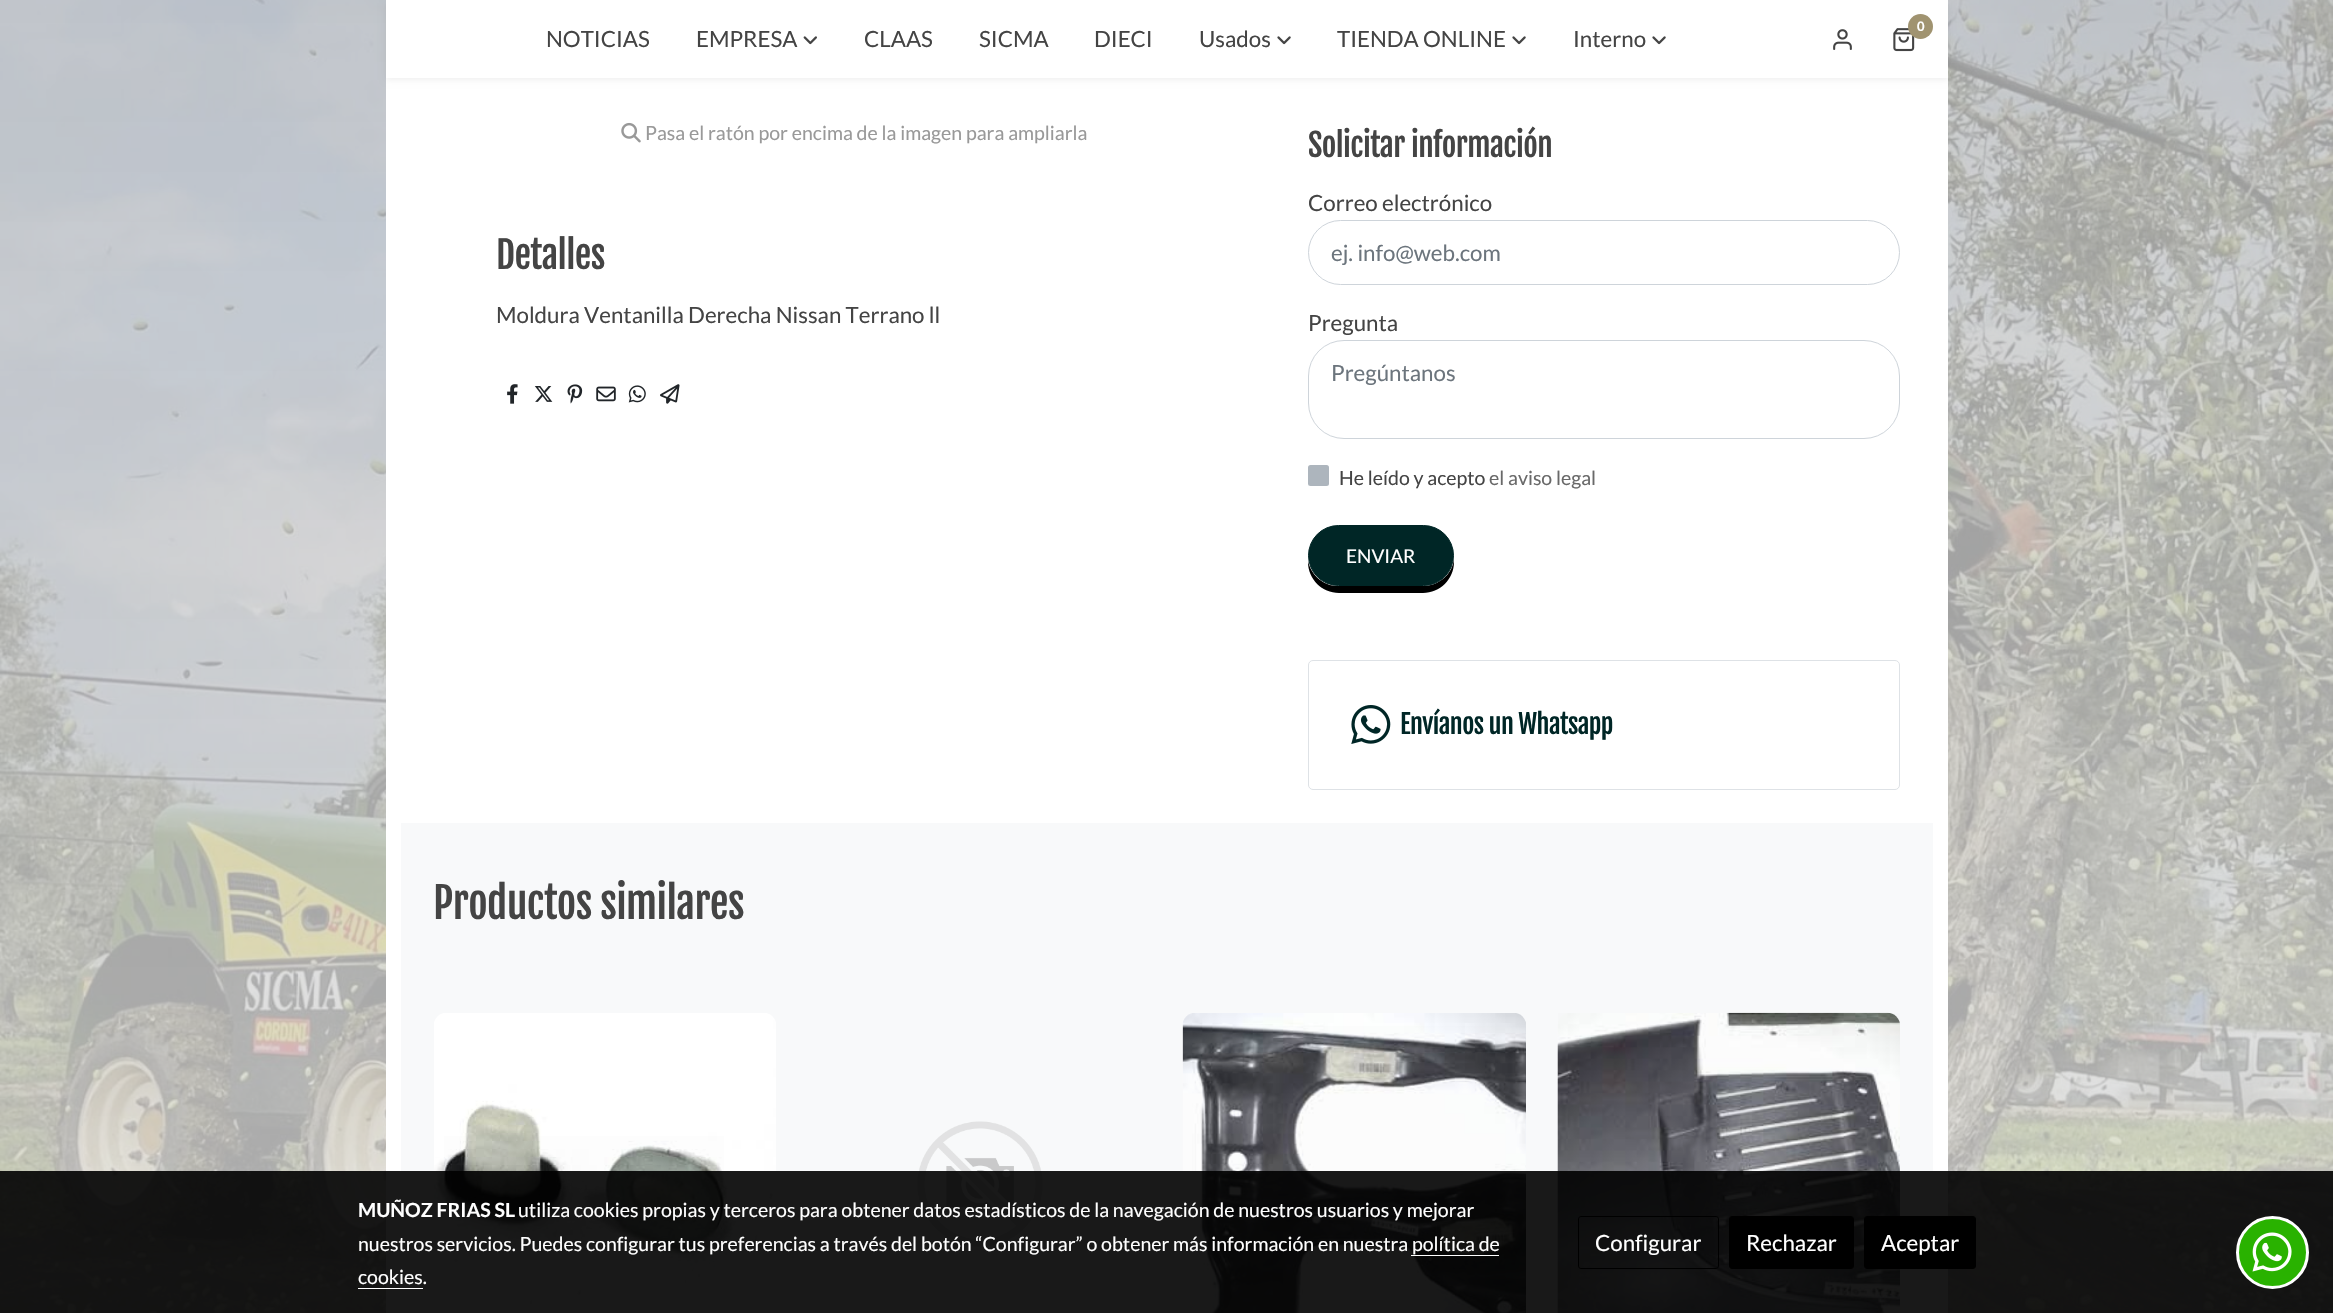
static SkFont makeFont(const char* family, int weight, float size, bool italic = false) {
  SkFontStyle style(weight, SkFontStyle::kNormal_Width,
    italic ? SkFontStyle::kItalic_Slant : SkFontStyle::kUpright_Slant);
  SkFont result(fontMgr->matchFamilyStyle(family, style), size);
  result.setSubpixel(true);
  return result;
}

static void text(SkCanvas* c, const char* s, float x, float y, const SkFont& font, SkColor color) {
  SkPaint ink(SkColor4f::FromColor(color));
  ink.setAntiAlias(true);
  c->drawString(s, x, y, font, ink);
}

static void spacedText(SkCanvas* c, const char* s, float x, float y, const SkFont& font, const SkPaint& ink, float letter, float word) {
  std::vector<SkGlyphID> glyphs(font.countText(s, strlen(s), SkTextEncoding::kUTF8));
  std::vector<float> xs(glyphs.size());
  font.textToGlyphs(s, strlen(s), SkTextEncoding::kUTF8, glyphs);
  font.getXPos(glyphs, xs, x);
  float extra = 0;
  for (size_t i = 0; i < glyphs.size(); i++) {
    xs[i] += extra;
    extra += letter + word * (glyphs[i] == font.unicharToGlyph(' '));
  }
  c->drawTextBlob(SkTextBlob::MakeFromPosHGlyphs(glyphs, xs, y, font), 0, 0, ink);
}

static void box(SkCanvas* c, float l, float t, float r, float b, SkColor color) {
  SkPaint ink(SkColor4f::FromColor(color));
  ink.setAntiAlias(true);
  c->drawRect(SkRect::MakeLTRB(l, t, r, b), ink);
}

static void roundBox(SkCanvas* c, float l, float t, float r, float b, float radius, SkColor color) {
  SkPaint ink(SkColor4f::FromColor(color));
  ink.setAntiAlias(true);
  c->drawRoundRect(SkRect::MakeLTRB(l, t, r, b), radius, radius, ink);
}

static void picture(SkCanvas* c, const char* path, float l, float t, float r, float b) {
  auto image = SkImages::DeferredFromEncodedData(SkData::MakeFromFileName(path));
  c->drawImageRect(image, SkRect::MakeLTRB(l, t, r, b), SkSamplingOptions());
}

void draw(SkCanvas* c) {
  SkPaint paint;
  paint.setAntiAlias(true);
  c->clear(0xffffffff);
  picture(c, "img_01.png", 0, 0, 2333, 1313);
  {
    const SkColor colors[] = {0xc9efefef, 0xc9afafaf};
    const float stops[] = {0, 1};
    const SkPoint ends[] = {{1167, 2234}, {1167, -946}};
    paint.setShader(SkGradientShader::MakeLinear(ends, colors, stops, 2, SkTileMode::kClamp));
    paint.setAlpha(255);
  }
  c->drawRect(SkRect::MakeLTRB(0, 0, 2333, 1313), paint);
  box(c, 386, 78, 1948, 1313, 0xffffffff);
  paint.setShader(nullptr);
  paint.setColor(0x0f000000);
  paint.setMaskFilter(SkMaskFilter::MakeBlur(kNormal_SkBlurStyle, 3));
  c->drawRect(SkRect::MakeLTRB(386, 3, 1948, 80), paint);
  paint.setMaskFilter(nullptr);
  box(c, 386, 0, 1948, 78, 0xffffffff);
  picture(c, "img_02.png", 1893, 28, 1915, 52);
  paint.setColor(0xffa09370);
  c->drawCircle(1920.5f, 26.5f, 12.5f, paint);
  SkFont face1 = makeFont("Lato", 700, 13);
  text(c, "0", 1917, 31, face1, 0xffffffff);
  picture(c, "img_03.png", 1833, 29, 1852, 50);
  SkFont face2 = makeFont("Lato", 400, 22.3f);
  text(c, "NOTICIAS", 546, 47, face2, 0xff444444);
  text(c, "EMPRESA", 696, 47, face2, 0xff444444);
  picture(c, "img_04.png", 803, 36, 817, 45);
  text(c, "CLAAS", 864, 47, face2, 0xff444444);
  text(c, "SICMA", 979, 47, face2, 0xff444444);
  text(c, "DIECI", 1094, 47, face2, 0xff444444);
  text(c, "Usados", 1199, 47, face2, 0xff444444);
  picture(c, "img_05.png", 1277, 36, 1291, 45);
  text(c, "TIENDA ONLINE", 1337, 47, face2, 0xff444444);
  picture(c, "img_05.png", 1512, 36, 1526, 45);
  text(c, "Interno", 1573, 47, face2, 0xff444444);
  picture(c, "img_05.png", 1652, 36, 1666, 45);
  picture(c, "img_06.png", 621, 122, 641, 143);
  SkFont face3 = makeFont("Lato", 400, 19.52f);
  text(c, "Pasa el ratón por encima de la imagen para ampliarla", 645, 140, face3, 0xff999999);
  SkFont face4 = makeFont("Fjalla One", 400, 37);
  paint.setColor(0xff444444);
  spacedText(c, "Detalles", 496, 269, face4, paint, -0.6f, 0);
  text(c, "Moldura Ventanilla Derecha Nissan Terrano ll", 496, 323, face2, 0xff444444);
  picture(c, "img_07.png", 507, 384, 518, 404);
  picture(c, "img_08.png", 534, 386, 553, 402);
  picture(c, "img_09.png", 567, 384, 583, 404);
  picture(c, "img_10.png", 596, 386, 616, 402);
  picture(c, "img_11.png", 628, 385, 646, 403);
  picture(c, "img_12.png", 660, 384, 680, 404);
  SkFont face5 = makeFont("Fjalla One", 400, 31.5f);
  spacedText(c, "Solicitar información", 1308, 157, face5, paint, -0.6f, 0);
  text(c, "Correo electrónico", 1308, 211, face2, 0xff444444);
  paint.setStyle(SkPaint::kStroke_Style);
  paint.setStrokeWidth(1);
  paint.setColor(0xffced4da);
  c->drawRoundRect(SkRect::MakeLTRB(1308.5f, 220.5f, 1899.5f, 284.5f), 32, 32, paint);
  text(c, "ej. info@web.com", 1331, 261, face2, 0xff6c757d);
  text(c, "Pregunta", 1308, 331, face2, 0xff444444);
  c->drawRoundRect(SkRect::MakeLTRB(1308.5f, 340.5f, 1899.5f, 438.5f), 35.5f, 35.5f, paint);
  text(c, "Pregúntanos", 1331, 381, face2, 0xff6c757d);
  roundBox(c, 1308, 465, 1329, 486, 2.5f, 0xffadb5bd);
  text(c, "He leído y acepto", 1339, 485, face3, 0xff444444);
  text(c, "el aviso legal", 1489, 485, face3, 0xff696969);
  paint.setStyle(SkPaint::kFill_Style);
  paint.setColor(0xff000000);
  c->drawPath(SkPathBuilder().moveTo(1308, 561).lineTo(1308, 562).cubicTo(1308, 579, 1322, 593, 1339, 593).lineTo(1423, 593).cubicTo(1440, 593, 1454, 579, 1454, 562).lineTo(1454, 558).cubicTo(1453, 574, 1439, 586, 1423, 586).lineTo(1338, 586).cubicTo(1323, 586, 1311, 575, 1308, 561).close().detach(), paint);
  paint.setColor(0xff002626);
  c->drawRoundRect(SkRect::MakeLTRB(1308.5f, 525.5f, 1453.5f, 585.5f), 30, 30, paint);
  paint.setStyle(SkPaint::kStroke_Style);
  c->drawRoundRect(SkRect::MakeLTRB(1308.5f, 525.5f, 1453.5f, 585.5f), 30, 30, paint);
  SkFont face6 = makeFont("Lato", 400, 19);
  text(c, "ENVIAR", 1346, 563, face6, 0xffffffff);
  paint.setColor(0xffdee2e6);
  c->drawRoundRect(SkRect::MakeLTRB(1308.5f, 660.5f, 1899.5f, 789.5f), 4.5f, 4.5f, paint);
  picture(c, "img_13.png", 1351, 705, 1391, 744);
  SkFont face7 = makeFont("Fjalla One", 400, 26.25f);
  paint.setStyle(SkPaint::kFill_Style);
  paint.setColor(0xff002626);
  spacedText(c, "Envíanos un Whatsapp", 1400, 734, face7, paint, -0.6f, 0);
  box(c, 401, 823, 1933, 1313, 0xfff8f9fa);
  SkFont face8 = makeFont("Fjalla One", 400, 42);
  paint.setColor(0xff444444);
  spacedText(c, "Productos similares", 433, 919, face8, paint, -0.6f, 0);
  picture(c, "img_14.png", 434, 1013, 776, 1313);
  box(c, 444, 1136, 724, 1252, 0x0dced4da);
  picture(c, "img_15.png", 917, 1121, 1043, 1247);
  picture(c, "img_16.png", 1182, 1013, 1526, 1313);
  box(c, 1183, 1026, 1526, 1313, 0x0dced4da);
  picture(c, "img_17.png", 1557, 1012, 1900, 1313);
  box(c, 1558, 1013, 1900, 1313, 0x0dced4da);
  box(c, 0, 1171, 2333, 1313, 0xe6000000);
  SkFont face9 = makeFont("Lato", 700, 19.52f);
  text(c, "MUÑOZ FRIAS SL", 358, 1217, face9, 0xffffffff);
  text(c, "utiliza cookies propias y terceros para obtener datos estadísticos de la navegación de nuestros usuarios y mejorar", 518, 1217, face3, 0xffffffff);
  text(c, "nuestros servicios. Puedes configurar tus preferencias a través del botón “Configurar” o obtener más información en nuestra política de", 358, 1251, face3, 0xffffffff);
  box(c, 1411, 1255, 1499, 1256, 0xffffffff);
  text(c, "cookies.", 358, 1284, face3, 0xffffffff);
  box(c, 358, 1288, 423, 1289, 0xffffffff);
  paint.setStyle(SkPaint::kStroke_Style);
  paint.setColor(0xff000000);
  c->drawRoundRect(SkRect::MakeLTRB(1578.5f, 1216.5f, 1718.5f, 1268.5f), 2.5f, 2.5f, paint);
  text(c, "Configurar", 1595, 1251, face2, 0xffffffff);
  paint.setStyle(SkPaint::kFill_Style);
  c->drawRoundRect(SkRect::MakeLTRB(1729.5f, 1216.5f, 1853.5f, 1268.5f), 2.5f, 2.5f, paint);
  paint.setStyle(SkPaint::kStroke_Style);
  c->drawRoundRect(SkRect::MakeLTRB(1729.5f, 1216.5f, 1853.5f, 1268.5f), 2.5f, 2.5f, paint);
  text(c, "Rechazar", 1746, 1251, face2, 0xffffffff);
  paint.setStyle(SkPaint::kFill_Style);
  c->drawRoundRect(SkRect::MakeLTRB(1864.5f, 1216.5f, 1975.5f, 1268.5f), 2.5f, 2.5f, paint);
  paint.setStyle(SkPaint::kStroke_Style);
  c->drawRoundRect(SkRect::MakeLTRB(1864.5f, 1216.5f, 1975.5f, 1268.5f), 2.5f, 2.5f, paint);
  text(c, "Aceptar", 1881, 1251, face2, 0xffffffff);
  paint.setStyle(SkPaint::kFill_Style);
  paint.setColor(0xff29b200);
  c->drawCircle(2272.5f, 1252.5f, 35, paint);
  paint.setStyle(SkPaint::kStroke_Style);
  paint.setStrokeWidth(3);
  paint.setColor(0xffffffff);
  c->drawCircle(2272.5f, 1252.5f, 35, paint);
  picture(c, "img_18.png", 2252, 1232, 2292, 1272);
}
